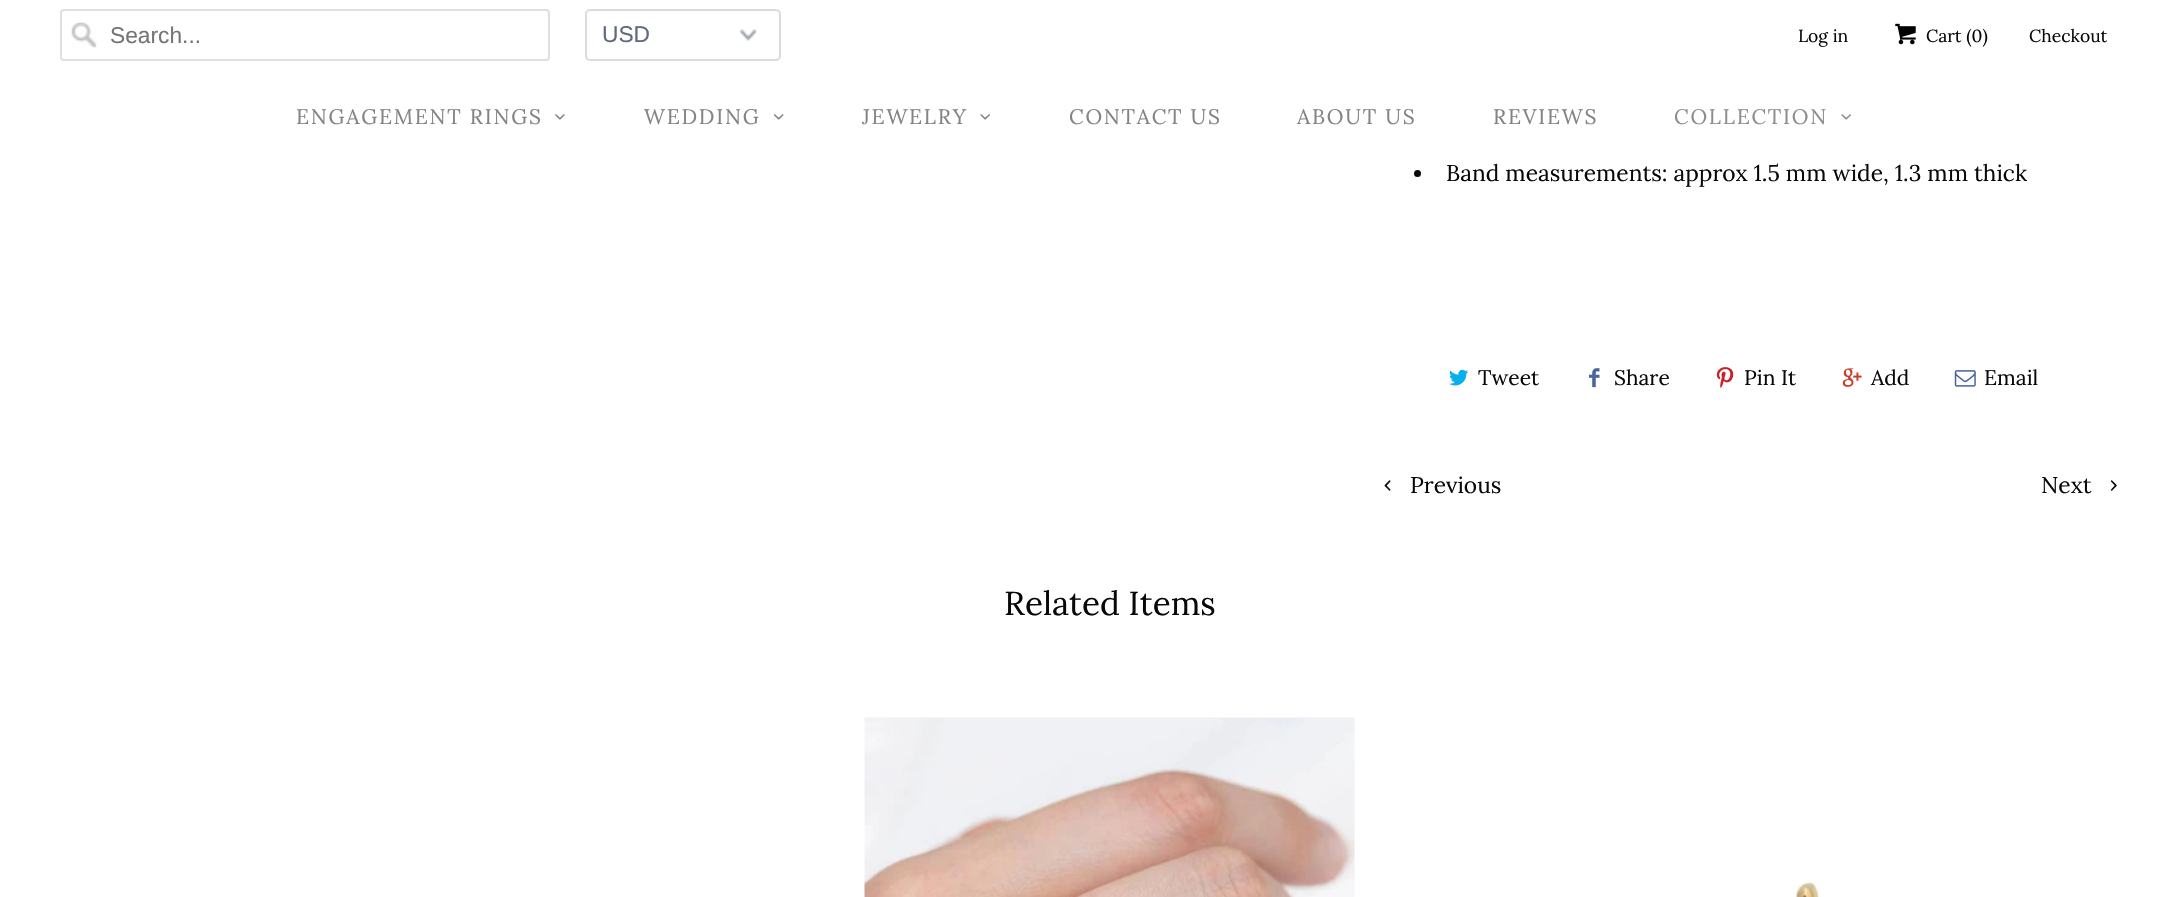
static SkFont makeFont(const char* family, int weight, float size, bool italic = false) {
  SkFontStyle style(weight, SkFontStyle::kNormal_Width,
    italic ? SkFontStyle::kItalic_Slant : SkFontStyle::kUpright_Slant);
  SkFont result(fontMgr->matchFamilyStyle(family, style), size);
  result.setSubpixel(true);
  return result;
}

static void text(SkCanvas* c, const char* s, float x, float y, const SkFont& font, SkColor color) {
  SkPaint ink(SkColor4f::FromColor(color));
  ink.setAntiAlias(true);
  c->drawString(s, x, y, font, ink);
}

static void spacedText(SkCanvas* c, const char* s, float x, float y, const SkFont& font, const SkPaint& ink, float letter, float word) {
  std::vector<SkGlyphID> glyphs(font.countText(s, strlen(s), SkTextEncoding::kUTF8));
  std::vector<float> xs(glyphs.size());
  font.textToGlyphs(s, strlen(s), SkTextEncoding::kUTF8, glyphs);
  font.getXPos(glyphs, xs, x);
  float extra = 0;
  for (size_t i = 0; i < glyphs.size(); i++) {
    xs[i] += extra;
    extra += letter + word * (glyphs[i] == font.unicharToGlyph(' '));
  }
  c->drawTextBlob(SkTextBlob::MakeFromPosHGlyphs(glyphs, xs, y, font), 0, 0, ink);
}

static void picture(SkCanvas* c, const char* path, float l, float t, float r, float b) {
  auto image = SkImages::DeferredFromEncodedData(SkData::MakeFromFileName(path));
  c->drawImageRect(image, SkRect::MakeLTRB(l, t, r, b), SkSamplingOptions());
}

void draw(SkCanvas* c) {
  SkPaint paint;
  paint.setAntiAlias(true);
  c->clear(0xffffffff);
  picture(c, "img_01.png", 71, 22, 97, 48);
  paint.setStyle(SkPaint::kStroke_Style);
  paint.setStrokeWidth(2);
  paint.setColor(0xffdfdfdf);
  c->drawRoundRect(SkRect::MakeLTRB(61, 10, 549, 60), 3, 3, paint);
  SkFont face1 = makeFont("Liberation Sans", 400, 22.75f);
  text(c, "Search...", 110, 43, face1, 0xff757575);
  picture(c, "img_02.png", 739, 29, 757, 41);
  paint.setColor(0xffd9dbdc);
  c->drawRoundRect(SkRect::MakeLTRB(586, 10, 780, 60), 4, 4, paint);
  text(c, "USD", 602, 42, face1, 0xff5f6a7d);
  SkFont face2 = makeFont("Lora", 400, 17.5f);
  text(c, "Log in", 1798, 42, face2, 0xff080808);
  picture(c, "img_03.png", 1895, 23, 1916, 45);
  text(c, "Cart (0)", 1926, 42, face2, 0xff080808);
  text(c, "Checkout", 2029, 42, face2, 0xff080808);
  SkFont face3 = makeFont("Lora", 400, 21);
  paint.setStyle(SkPaint::kFill_Style);
  paint.setColor(0xff848383);
  spacedText(c, "ENGAGEMENT RINGS", 296, 124, face3, paint, 1.75f, 0);
  picture(c, "img_04.png", 555, 114, 565, 120);
  spacedText(c, "WEDDING", 644, 124, face3, paint, 1.75f, 0);
  picture(c, "img_05.png", 773, 114, 784, 120);
  spacedText(c, "JEWELRY", 862, 124, face3, paint, 1.75f, 0);
  picture(c, "img_06.png", 980, 114, 990, 120);
  spacedText(c, "CONTACT US", 1069, 124, face3, paint, 1.75f, 0);
  spacedText(c, "ABOUT US", 1297, 124, face3, paint, 1.75f, 0);
  spacedText(c, "REVIEWS", 1493, 124, face3, paint, 1.75f, 0);
  paint.setColor(0xff8e8c8c);
  spacedText(c, "COLLECTION", 1674, 124, face3, paint, 1.75f, 0);
  picture(c, "img_07.png", 1841, 114, 1851, 120);
  paint.setColor(0xff090909);
  c->drawCircle(1417.5f, 173.5f, 3.5f, paint);
  SkFont face4 = makeFont("Lora", 400, 22.75f);
  text(c, "Band measurements: approx 1.5 mm wide, 1.3 mm thick", 1446, 181, face4, 0xff080808);
  picture(c, "img_08.png", 1449, 369, 1469, 386);
  text(c, "Tweet", 1478, 385, face3, 0xff080808);
  picture(c, "img_09.png", 1589, 368, 1600, 388);
  text(c, "Share", 1614, 385, face3, 0xff080808);
  picture(c, "img_10.png", 1716, 367, 1734, 388);
  text(c, "Pin It", 1744, 385, face3, 0xff080808);
  picture(c, "img_11.png", 1842, 368, 1862, 387);
  text(c, "Add", 1871, 385, face3, 0xff080808);
  picture(c, "img_12.png", 1954, 370, 1976, 387);
  text(c, "Email", 1984, 385, face3, 0xff080808);
  picture(c, "img_13.png", 1384, 480, 1391, 491);
  text(c, "Previous", 1410, 493, face4, 0xff080808);
  text(c, "Next", 2041, 493, face4, 0xff080808);
  picture(c, "img_14.png", 2110, 480, 2117, 491);
  SkFont face5 = makeFont("Lora", 400, 33.25f);
  text(c, "Related Items", 1004, 615, face5, 0xff080808);
  picture(c, "img_15.png", 864, 717, 1355, 897);
  picture(c, "img_16.png", 1795, 881, 1820, 897);
}
